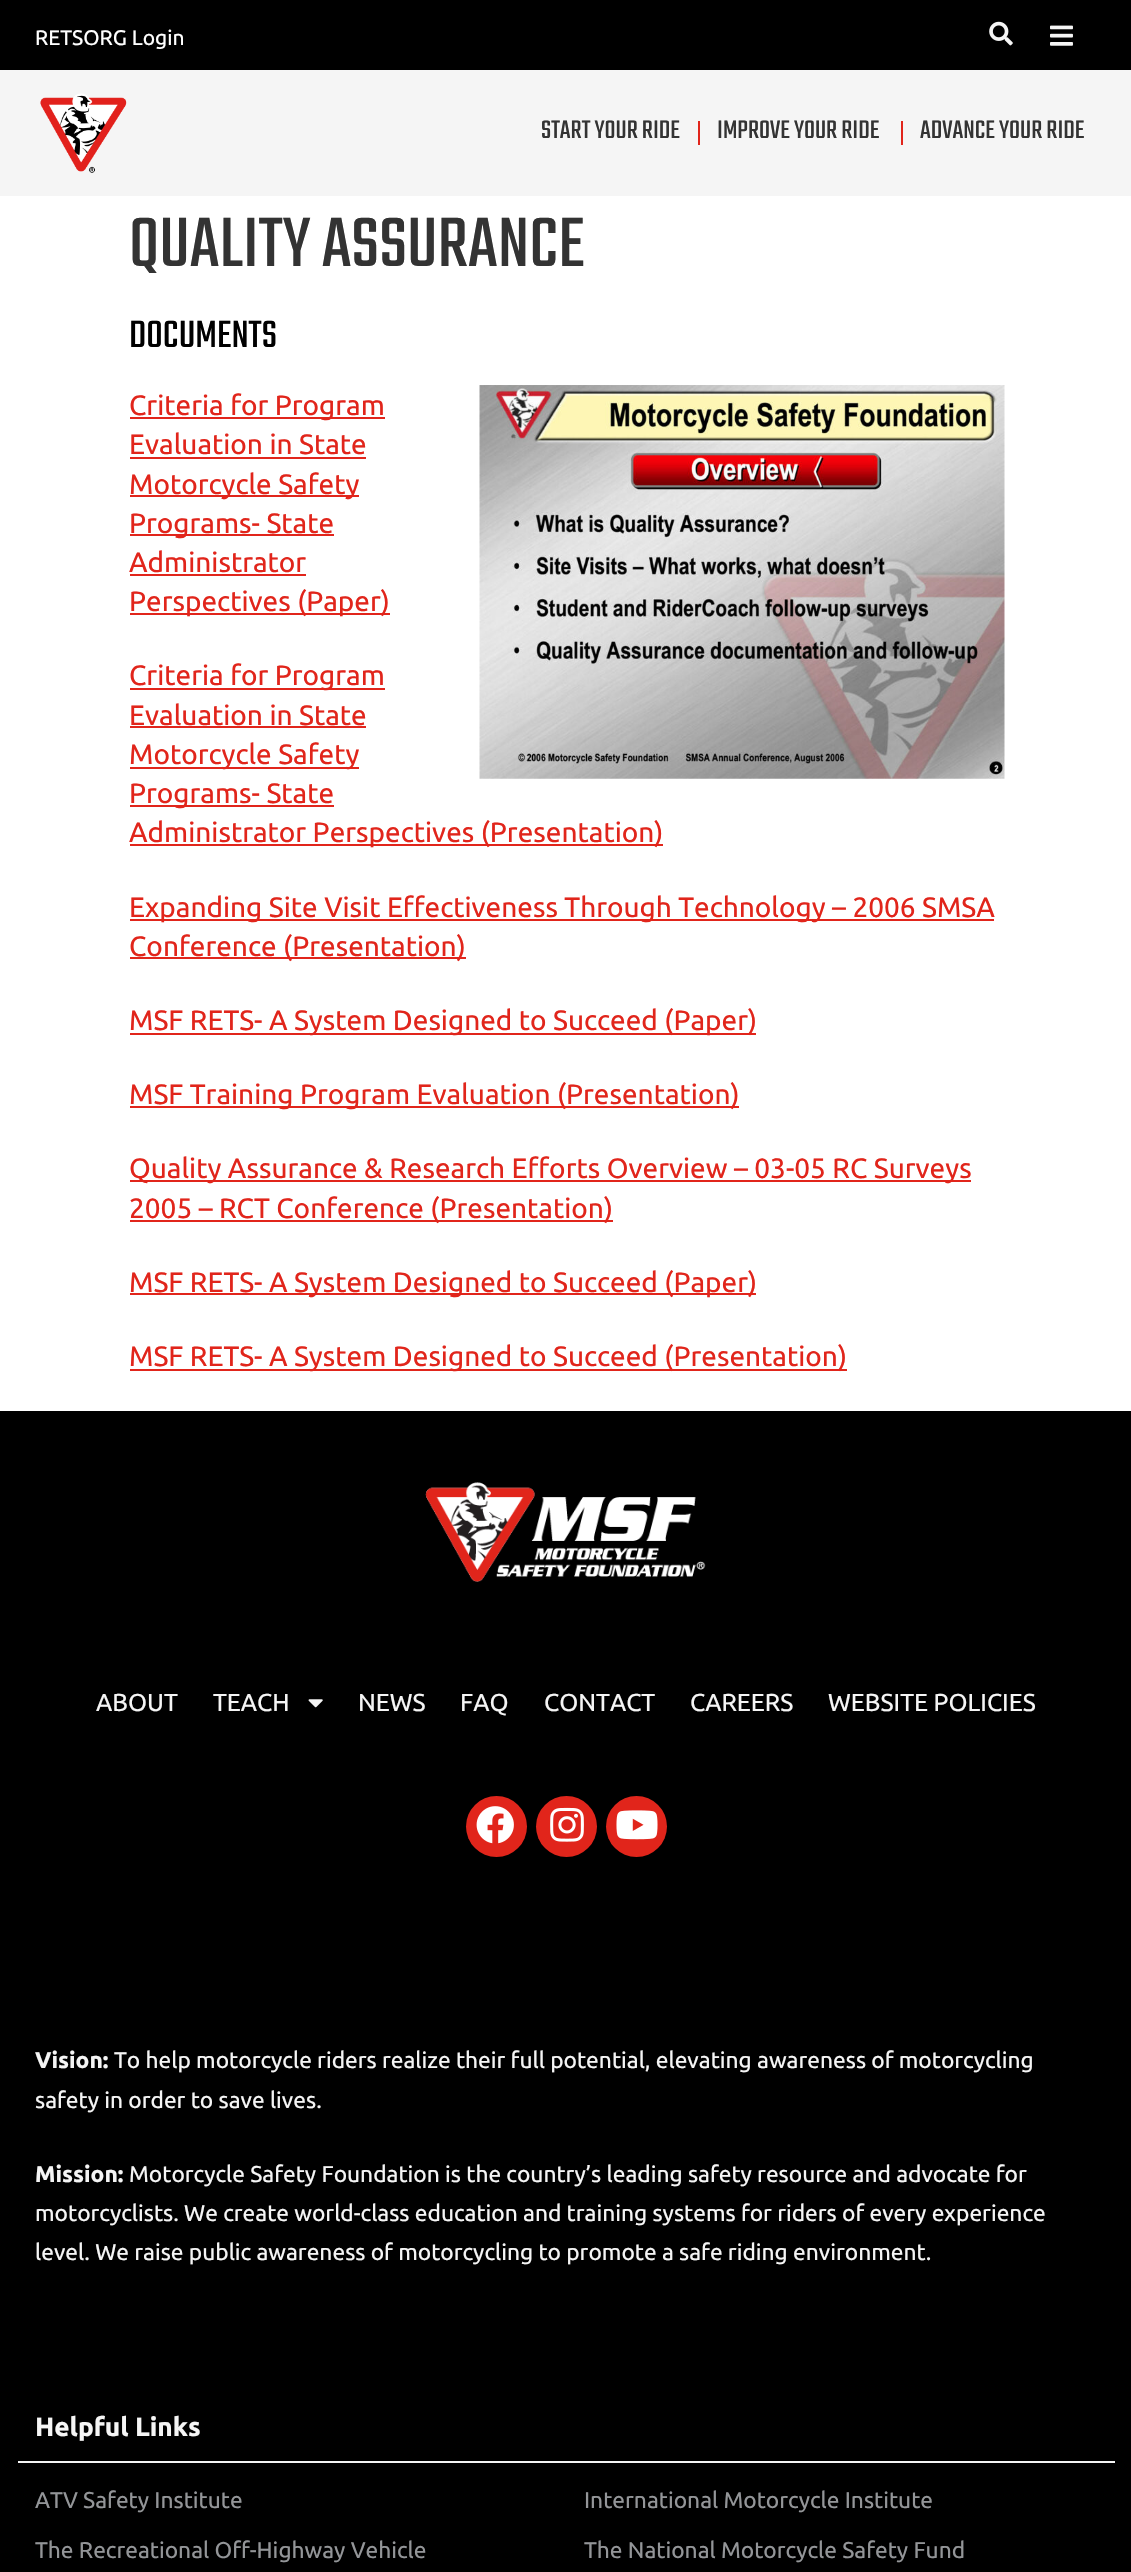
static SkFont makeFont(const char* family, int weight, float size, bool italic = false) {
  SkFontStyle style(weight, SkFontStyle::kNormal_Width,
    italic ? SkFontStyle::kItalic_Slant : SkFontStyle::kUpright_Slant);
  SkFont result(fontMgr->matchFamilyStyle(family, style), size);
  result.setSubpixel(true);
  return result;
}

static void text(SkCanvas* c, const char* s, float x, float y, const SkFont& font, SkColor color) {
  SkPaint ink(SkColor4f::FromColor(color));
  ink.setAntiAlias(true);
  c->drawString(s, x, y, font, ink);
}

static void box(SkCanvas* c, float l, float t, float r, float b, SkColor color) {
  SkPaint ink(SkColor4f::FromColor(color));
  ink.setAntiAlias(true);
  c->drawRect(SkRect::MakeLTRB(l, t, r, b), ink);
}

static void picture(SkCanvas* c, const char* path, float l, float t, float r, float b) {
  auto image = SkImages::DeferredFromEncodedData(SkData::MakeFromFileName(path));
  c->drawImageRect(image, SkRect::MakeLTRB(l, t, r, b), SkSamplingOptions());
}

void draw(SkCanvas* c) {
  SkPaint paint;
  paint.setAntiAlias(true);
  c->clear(0xffffffff);
  box(c, 0, 0, 1131, 70, 0xff000000);
  SkFont face1 = makeFont("Ubuntu", 400, 21);
  text(c, "RETSORG Login", 35, 45, face1, 0xffffffff);
  picture(c, "img_01.png", 989, 21, 1013, 46);
  picture(c, "img_02.png", 1050, 25, 1073, 46);
  box(c, 0, 70, 1131, 196, 0xfff5f5f5);
  picture(c, "img_03.png", 40, 93, 127, 173);
  box(c, 698, 121, 700, 145, 0xffe1251b);
  SkFont face2 = makeFont("Teko", 400, 28);
  text(c, "START YOUR RIDE", 541, 138, face2, 0xff333333);
  box(c, 901, 121, 903, 145, 0xffe1251b);
  text(c, "IMPROVE YOUR RIDE", 717, 138, face2, 0xff333333);
  text(c, "ADVANCE YOUR RIDE", 920, 138, face2, 0xff333333);
  SkFont face3 = makeFont("Teko", 400, 77);
  text(c, "QUALITY ASSURANCE", 129, 266, face3, 0xff333333);
  SkFont face4 = makeFont("Teko", 400, 42);
  text(c, "DOCUMENTS", 129, 347, face4, 0xff000000);
  box(c, 130, 417, 385, 419, 0xffe1251b);
  SkFont face5 = makeFont("Ubuntu", 400, 28);
  text(c, "Criteria for Program", 129, 415, face5, 0xffe1251b);
  picture(c, "img_04.png", 479, 385, 1005, 779);
  text(c, "Evaluation in State", 129, 454, face5, 0xffe1251b);
  box(c, 130, 457, 366, 459, 0xffe1251b);
  box(c, 130, 495, 359, 497, 0xffe1251b);
  text(c, "Motorcycle Safety", 129, 494, face5, 0xffe1251b);
  box(c, 130, 534, 334, 536, 0xffe1251b);
  text(c, "Programs- State", 129, 533, face5, 0xffe1251b);
  text(c, "Administrator", 129, 572, face5, 0xffe1251b);
  box(c, 130, 574, 306, 576, 0xffe1251b);
  box(c, 130, 613, 390, 615, 0xffe1251b);
  text(c, "Perspectives (Paper)", 129, 611, face5, 0xffe1251b);
  box(c, 130, 688, 385, 690, 0xffe1251b);
  text(c, "Criteria for Program", 129, 685, face5, 0xffe1251b);
  text(c, "Evaluation in State", 129, 725, face5, 0xffe1251b);
  box(c, 130, 726, 366, 728, 0xffe1251b);
  box(c, 130, 767, 359, 769, 0xffe1251b);
  text(c, "Motorcycle Safety", 129, 764, face5, 0xffe1251b);
  box(c, 130, 805, 334, 807, 0xffe1251b);
  text(c, "Programs- State", 129, 803, face5, 0xffe1251b);
  box(c, 130, 844, 663, 846, 0xffe1251b);
  text(c, "Administrator Perspectives (Presentation)", 129, 842, face5, 0xffe1251b);
  box(c, 130, 919, 994, 921, 0xffe1251b);
  text(c, "Expanding Site Visit Effectiveness Through Technology – 2006 SMSA", 129, 917, face5, 0xffe1251b);
  box(c, 130, 957, 466, 959, 0xffe1251b);
  text(c, "Conference (Presentation)", 129, 956, face5, 0xffe1251b);
  box(c, 130, 1033, 756, 1035, 0xffe1251b);
  text(c, "MSF RETS- A System Designed to Succeed (Paper)", 129, 1030, face5, 0xffe1251b);
  box(c, 130, 1106, 739, 1108, 0xffe1251b);
  text(c, "MSF Training Program Evaluation (Presentation)", 129, 1104, face5, 0xffe1251b);
  box(c, 130, 1180, 971, 1182, 0xffe1251b);
  text(c, "Quality Assurance & Research Efforts Overview – 03-05 RC Surveys", 129, 1178, face5, 0xffe1251b);
  box(c, 130, 1220, 613, 1222, 0xffe1251b);
  text(c, "2005 – RCT Conference (Presentation)", 129, 1218, face5, 0xffe1251b);
  box(c, 130, 1293, 756, 1295, 0xffe1251b);
  text(c, "MSF RETS- A System Designed to Succeed (Paper)", 129, 1292, face5, 0xffe1251b);
  box(c, 130, 1369, 847, 1371, 0xffe1251b);
  text(c, "MSF RETS- A System Designed to Succeed (Presentation)", 129, 1366, face5, 0xffe1251b);
  box(c, 0, 1411, 1131, 2572, 0xff000000);
  picture(c, "img_05.png", 425, 1482, 706, 1582);
  SkFont face6 = makeFont("Ubuntu", 400, 24.5f);
  text(c, "ABOUT", 96, 1711, face6, 0xfff5f5f5);
  text(c, "TEACH", 213, 1711, face6, 0xfff5f5f5);
  picture(c, "img_06.png", 308, 1699, 323, 1708);
  text(c, "NEWS", 358, 1711, face6, 0xfff5f5f5);
  text(c, "FAQ", 460, 1711, face6, 0xfff5f5f5);
  text(c, "CONTACT", 544, 1711, face6, 0xfff5f5f5);
  text(c, "CAREERS", 690, 1711, face6, 0xfff5f5f5);
  text(c, "WEBSITE POLICIES", 828, 1711, face6, 0xfff5f5f5);
  paint.setColor(0xffe1251b);
  c->drawCircle(496.5f, 1826.5f, 30.5f, paint);
  picture(c, "img_07.png", 476, 1806, 514, 1844);
  c->drawCircle(566.5f, 1826.5f, 30.5f, paint);
  picture(c, "img_08.png", 550, 1807, 584, 1842);
  c->drawCircle(636.5f, 1826.5f, 30.5f, paint);
  picture(c, "img_09.png", 616, 1810, 658, 1840);
  SkFont face7 = makeFont("Ubuntu", 700, 22.75f);
  text(c, "Vision:", 35, 2068, face7, 0xfff5f5f5);
  SkFont face8 = makeFont("Ubuntu", 400, 22.75f);
  text(c, "To help motorcycle riders realize their full potential, elevating awareness of motorcycling", 114, 2068, face8, 0xfff5f5f5);
  text(c, "safety in order to save lives.", 35, 2108, face8, 0xfff5f5f5);
  text(c, "Mission:", 35, 2182, face7, 0xfff5f5f5);
  text(c, "Motorcycle Safety Foundation is the country’s leading safety resource and advocate for", 129, 2182, face8, 0xfff5f5f5);
  text(c, "motorcyclists. We create world-class education and training systems for riders of every experience", 35, 2221, face8, 0xfff5f5f5);
  text(c, "level. We raise public awareness of motorcycling to promote a safe riding environment.", 35, 2260, face8, 0xfff5f5f5);
  box(c, 18, 2461, 1115, 2463, 0xfff5f5f5);
  SkFont face9 = makeFont("Ubuntu", 700, 26.25f);
  text(c, "Helpful Links", 35, 2436, face9, 0xfff5f5f5);
  text(c, "ATV Safety Institute", 35, 2508, face8, 0xff939598);
  text(c, "International Motorcycle Institute", 584, 2508, face8, 0xff939598);
  text(c, "The Recreational Off-Highway Vehicle", 35, 2558, face8, 0xff939598);
  text(c, "The National Motorcycle Safety Fund", 584, 2558, face8, 0xff939598);
}
